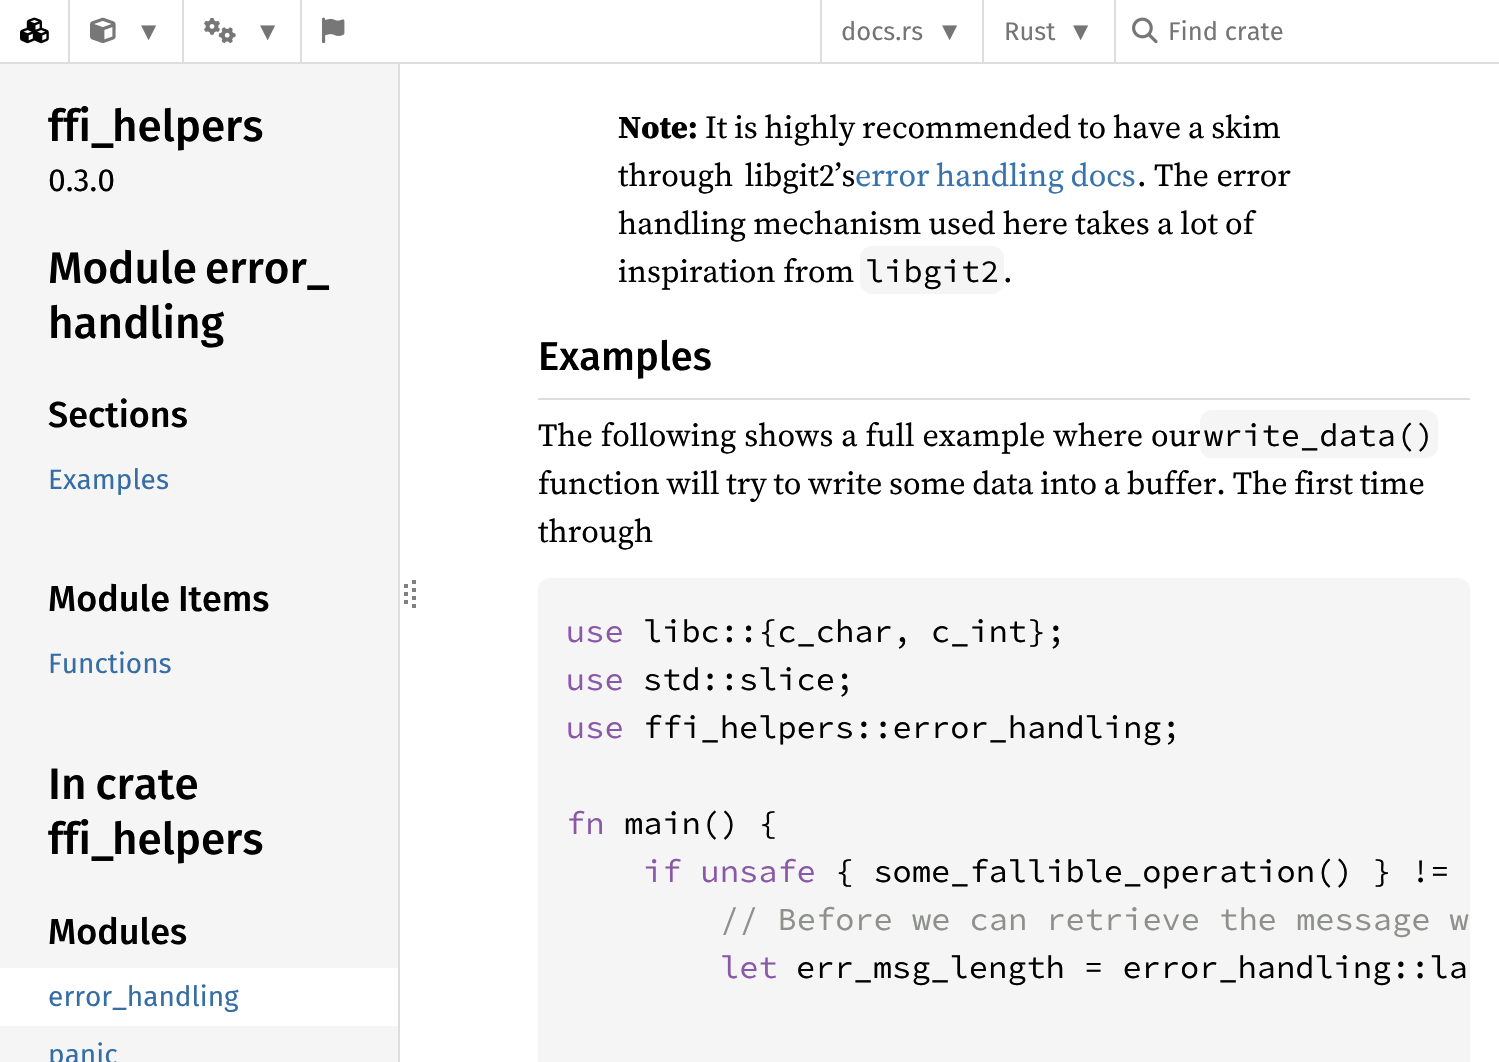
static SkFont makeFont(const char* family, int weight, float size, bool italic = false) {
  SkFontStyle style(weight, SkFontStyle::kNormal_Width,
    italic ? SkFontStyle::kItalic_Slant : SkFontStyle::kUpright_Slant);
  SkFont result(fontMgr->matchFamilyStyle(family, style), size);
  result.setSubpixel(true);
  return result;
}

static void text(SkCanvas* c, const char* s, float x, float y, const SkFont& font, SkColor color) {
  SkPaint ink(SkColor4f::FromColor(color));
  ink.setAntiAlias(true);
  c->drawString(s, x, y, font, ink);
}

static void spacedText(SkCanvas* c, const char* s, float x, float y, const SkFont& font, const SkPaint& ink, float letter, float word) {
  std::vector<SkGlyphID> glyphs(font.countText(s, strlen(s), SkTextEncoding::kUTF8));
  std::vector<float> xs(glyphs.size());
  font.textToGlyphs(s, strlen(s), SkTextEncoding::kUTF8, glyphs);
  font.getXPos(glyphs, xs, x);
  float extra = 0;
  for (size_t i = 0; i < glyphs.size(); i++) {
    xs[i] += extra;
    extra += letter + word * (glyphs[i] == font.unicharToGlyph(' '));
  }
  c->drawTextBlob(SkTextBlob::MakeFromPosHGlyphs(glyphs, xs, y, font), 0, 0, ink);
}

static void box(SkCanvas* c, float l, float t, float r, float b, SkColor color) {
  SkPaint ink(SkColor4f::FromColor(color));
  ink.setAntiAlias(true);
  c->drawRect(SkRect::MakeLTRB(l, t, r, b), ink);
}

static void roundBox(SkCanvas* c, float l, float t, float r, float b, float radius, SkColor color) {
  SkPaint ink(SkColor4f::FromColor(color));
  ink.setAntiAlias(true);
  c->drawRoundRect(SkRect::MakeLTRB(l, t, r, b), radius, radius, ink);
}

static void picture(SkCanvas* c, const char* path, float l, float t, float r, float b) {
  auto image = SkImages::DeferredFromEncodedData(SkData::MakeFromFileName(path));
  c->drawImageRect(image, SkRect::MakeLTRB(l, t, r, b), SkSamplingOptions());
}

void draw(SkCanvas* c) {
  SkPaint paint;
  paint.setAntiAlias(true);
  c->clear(0xffffffff);
  box(c, 0, 62, 1499, 64, 0xffdddddd);
  picture(c, "img_01.png", 20, 17, 49, 44);
  box(c, 68, 0, 70, 62, 0xffdddddd);
  picture(c, "img_02.png", 90, 17, 116, 44);
  SkFont face1 = makeFont("Liberation Sans", 400, 25.5f);
  text(c, "▼", 136, 40, face1, 0xff757575);
  box(c, 182, 0, 184, 62, 0xffdddddd);
  picture(c, "img_03.png", 204, 18, 236, 43);
  text(c, "▼", 255, 40, face1, 0xff757575);
  box(c, 300, 0, 302, 62, 0xffdddddd);
  picture(c, "img_04.png", 322, 17, 345, 44);
  box(c, 820, 0, 822, 62, 0xffdddddd);
  SkFont face2 = makeFont("Fira Sans", 400, 25.5f);
  text(c, "docs.rs", 841, 40, face2, 0xff757575);
  text(c, "▼", 937, 40, face1, 0xff757575);
  box(c, 982, 0, 984, 62, 0xffdddddd);
  text(c, "Rust", 1004, 40, face2, 0xff757575);
  text(c, "▼", 1068, 40, face1, 0xff757575);
  box(c, 1114, 0, 1116, 62, 0xffdddddd);
  picture(c, "img_05.png", 1132, 17, 1158, 44);
  text(c, "Find crate", 1168, 40, face2, 0xff757575);
  box(c, 0, 64, 398, 1062, 0xfff5f5f5);
  box(c, 398, 64, 400, 1062, 0xffdddddd);
  SkFont face3 = makeFont("Fira Sans", 500, 44);
  text(c, "ffi_", 48, 141, face3, 0xff000000);
  text(c, "helpers", 112, 141, face3, 0xff000000);
  SkFont face4 = makeFont("Fira Sans", 400, 32);
  text(c, "0.3.0", 48, 191, face4, 0xff000000);
  paint.setColor(0xff000000);
  spacedText(c, "Module error_", 48, 283, face3, paint, 0, -3);
  text(c, "handling", 48, 338, face3, 0xff000000);
  SkFont face5 = makeFont("Fira Sans", 500, 36);
  text(c, "Sections", 48, 427, face5, 0xff000000);
  SkFont face6 = makeFont("Fira Sans", 400, 28);
  text(c, "Examples", 48, 489, face6, 0xff356da4);
  spacedText(c, "Module Items", 48, 611, face5, paint, 0, -1);
  text(c, "Functions", 48, 673, face6, 0xff356da4);
  spacedText(c, "In crate", 48, 799, face3, paint, 0, -2);
  text(c, "ffi_", 48, 854, face3, 0xff000000);
  text(c, "helpers", 112, 854, face3, 0xff000000);
  text(c, "Modules", 48, 944, face5, 0xff000000);
  box(c, 0, 968, 398, 1026, 0xffffffff);
  text(c, "error_handling", 48, 1006, face6, 0xff356da4);
  text(c, "panic", 48, 1064, face6, 0xff356da4);
  paint.setStyle(SkPaint::kStroke_Style);
  paint.setStrokeWidth(4);
  paint.setColor(0xff808080);
  c->drawPath(SkPathBuilder().moveTo(406, 584).lineTo(406, 588).moveTo(406, 592).lineTo(406, 596).moveTo(406, 600).lineTo(406, 604).detach(), paint);
  paint.setPathEffect(SkDashPathEffect::Make({{4, 4}}, 0));
  c->drawPath(SkPathBuilder().moveTo(414, 580).lineTo(414, 612).detach(), paint);
  paint.setPathEffect(nullptr);
  SkFont face7 = makeFont("Source Serif 4", 800, 32);
  text(c, "Note:", 618, 138, face7, 0xff000000);
  SkFont face8 = makeFont("Source Serif 4", 400, 32);
  paint.setStyle(SkPaint::kFill_Style);
  paint.setColor(0xff000000);
  spacedText(c, "It is highly recommended to have a skim", 705, 138, face8, paint, 0, -0.5f);
  spacedText(c, "through libgit2’s", 618, 186, face8, paint, 0, 4);
  paint.setColor(0xff3873ad);
  spacedText(c, "error handling docs", 855, 186, face8, paint, 0, -1);
  text(c, ". The error", 1137, 186, face8, 0xff000000);
  paint.setColor(0xff000000);
  spacedText(c, "handling mechanism used here takes a lot of", 618, 234, face8, paint, 0, -0.25f);
  text(c, "inspiration from", 618, 282, face8, 0xff000000);
  roundBox(c, 860, 246, 1004, 294, 12, 0xfff5f5f5);
  SkFont face9 = makeFont("Source Code Pro", 400, 32);
  text(c, "libgit2", 865, 282, face9, 0xff000000);
  text(c, ".", 1003, 282, face8, 0xff000000);
  box(c, 538, 398, 1470, 400, 0xffdddddd);
  SkFont face10 = makeFont("Fira Sans", 500, 40);
  text(c, "Examples", 538, 370, face10, 0xff000000);
  spacedText(c, "The following shows a full example where our", 538, 446, face8, paint, 0, 0.5f);
  roundBox(c, 1200, 410, 1438, 458, 12, 0xfff5f5f5);
  text(c, "write_data()", 1204, 446, face9, 0xff000000);
  spacedText(c, "function will try to write some data into a buffer. The first time", 538, 494, face8, paint, 0, -0.75f);
  text(c, "through", 538, 542, face8, 0xff000000);
  roundBox(c, 538, 578, 1470, 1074, 12, 0xfff5f5f5);
  text(c, "use", 566, 642, face9, 0xff8959a8);
  text(c, "libc::{c_char, c_int};", 643, 642, face9, 0xff000000);
  text(c, "use", 566, 690, face9, 0xff8959a8);
  text(c, "std::slice;", 643, 690, face9, 0xff000000);
  text(c, "use", 566, 738, face9, 0xff8959a8);
  text(c, "ffi_helpers::error_handling;", 643, 738, face9, 0xff000000);
  text(c, "fn", 566, 834, face9, 0xff8959a8);
  text(c, "main() {", 624, 834, face9, 0xff000000);
  text(c, "if unsafe", 643, 882, face9, 0xff8959a8);
  text(c, "{ some_fallible_operation() } !=", 835, 882, face9, 0xff000000);
  text(c, "// Before we can retrieve the message w", 720, 930, face9, 0xff8e908c);
  text(c, "let", 720, 978, face9, 0xff8959a8);
  text(c, "err_msg_length = error_handling::la", 796, 978, face9, 0xff000000);
}
